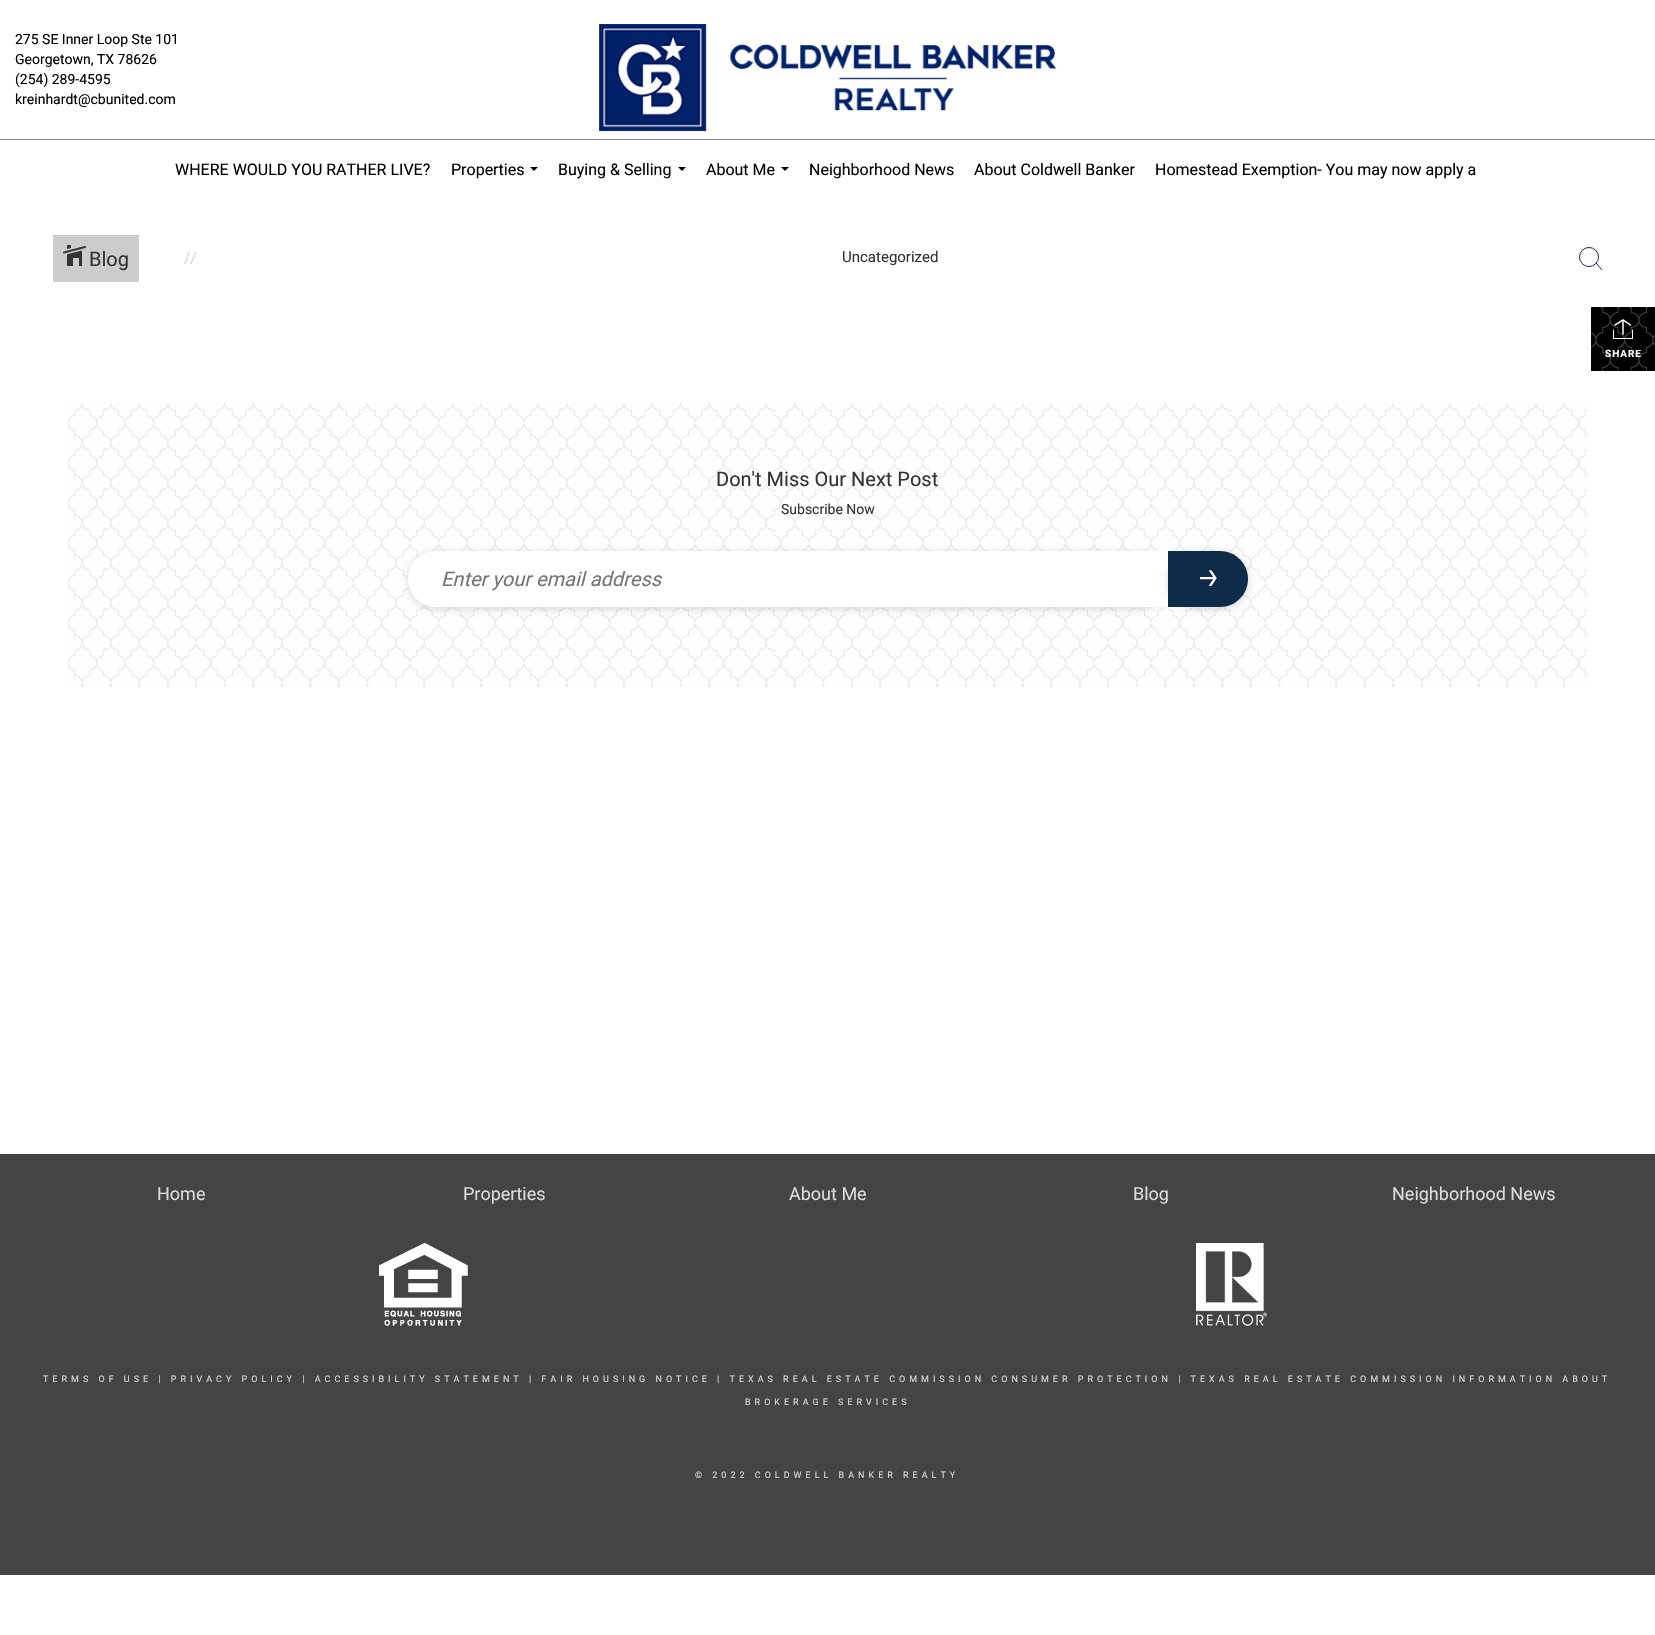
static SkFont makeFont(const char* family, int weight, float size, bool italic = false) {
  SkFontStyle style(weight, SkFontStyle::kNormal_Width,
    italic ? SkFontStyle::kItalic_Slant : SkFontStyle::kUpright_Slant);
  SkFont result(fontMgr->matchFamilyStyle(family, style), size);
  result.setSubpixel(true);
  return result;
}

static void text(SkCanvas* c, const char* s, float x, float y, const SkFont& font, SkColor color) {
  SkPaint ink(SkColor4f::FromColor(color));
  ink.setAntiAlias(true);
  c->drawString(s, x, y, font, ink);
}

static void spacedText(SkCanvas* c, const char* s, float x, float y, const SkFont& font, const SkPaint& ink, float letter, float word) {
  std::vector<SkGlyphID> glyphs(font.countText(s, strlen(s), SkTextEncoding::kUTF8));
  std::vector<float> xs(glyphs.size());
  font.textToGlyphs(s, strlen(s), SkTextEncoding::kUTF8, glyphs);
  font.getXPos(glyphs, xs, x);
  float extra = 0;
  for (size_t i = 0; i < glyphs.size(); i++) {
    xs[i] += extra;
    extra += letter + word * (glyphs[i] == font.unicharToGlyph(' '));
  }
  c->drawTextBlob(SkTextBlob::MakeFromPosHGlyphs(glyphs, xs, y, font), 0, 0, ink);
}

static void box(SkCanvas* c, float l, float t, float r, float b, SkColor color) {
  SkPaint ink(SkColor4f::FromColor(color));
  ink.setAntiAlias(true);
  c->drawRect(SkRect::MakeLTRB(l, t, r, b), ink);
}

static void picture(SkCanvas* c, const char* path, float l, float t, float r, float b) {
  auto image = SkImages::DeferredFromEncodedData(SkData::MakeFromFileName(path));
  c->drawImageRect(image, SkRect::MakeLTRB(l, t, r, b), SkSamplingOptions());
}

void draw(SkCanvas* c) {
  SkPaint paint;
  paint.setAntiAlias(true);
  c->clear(0xffffffff);
  box(c, 0, 139, 1655, 140, 0xff808080);
  SkFont face1 = makeFont("Roboto", 400, 14);
  text(c, "275 SE Inner Loop Ste 101", 15, 44, face1, 0xff000000);
  text(c, "Georgetown, TX 78626", 15, 64, face1, 0xff000000);
  text(c, "(254) 289-4595", 15, 84, face1, 0xff000000);
  text(c, "kreinhardt@cbunited.com", 15, 104, face1, 0xff000000);
  picture(c, "img_01.png", 599, 24, 1057, 132);
  SkFont face2 = makeFont("Roboto", 400, 16);
  text(c, "WHERE WOULD YOU RATHER LIVE?", 175, 175, face2, 0xff000000);
  text(c, "Properties", 451, 175, face2, 0xff000000);
  paint.setColor(0xff000000);
  c->drawPath(SkPathBuilder().moveTo(530, 167).lineTo(538, 167).lineTo(534, 171).close().detach(), paint);
  text(c, "Buying & Selling", 558, 175, face2, 0xff000000);
  c->drawPath(SkPathBuilder().moveTo(678, 167).lineTo(686, 167).lineTo(682, 171).close().detach(), paint);
  text(c, "About Me", 706, 175, face2, 0xff000000);
  c->drawPath(SkPathBuilder().moveTo(781, 167).lineTo(789, 167).lineTo(785, 171).close().detach(), paint);
  text(c, "Neighborhood News", 809, 175, face2, 0xff000000);
  text(c, "About Coldwell Banker", 974, 175, face2, 0xff000000);
  text(c, "Homestead Exemption- You may now apply a", 1155, 175, face2, 0xff000000);
  box(c, 53, 235, 139, 282, 0xffcccccc);
  picture(c, "img_02.png", 63, 245, 86, 266);
  SkFont face3 = makeFont("Roboto", 400, 20);
  text(c, "Blog", 89, 266, face3, 0xff333333);
  SkFont face4 = makeFont("Roboto", 400, 15);
  text(c, "//", 184, 263, face4, 0xffd5d5d5);
  text(c, "Uncategorized", 842, 262, face4, 0xff333333);
  paint.setStyle(SkPaint::kStroke_Style);
  paint.setStrokeWidth(1);
  paint.setColor(0xff0e2b4a);
  c->drawCircle(1589, 257, 9.5f, paint);
  c->drawPath(SkPathBuilder().moveTo(1596, 263).lineTo(1602, 270).detach(), paint);
  picture(c, "img_03.png", 1591, 307, 1655, 371);
  picture(c, "img_04.png", 1613, 319, 1633, 339);
  SkFont face5 = makeFont("Roboto", 700, 10);
  paint.setStyle(SkPaint::kFill_Style);
  paint.setColor(0xffffffff);
  spacedText(c, "SHARE", 1605, 357, face5, paint, 1, 0);
  box(c, 68, 403, 1588, 687, 0xfffcfcfc);
  picture(c, "img_05.png", 68, 403, 1588, 687);
  text(c, "Don't Miss Our Next Post", 716, 486, face3, 0xff333333);
  text(c, "Subscribe Now", 781, 514, face1, 0xff333333);
  paint.setColor(0x26000000);
  paint.setMaskFilter(SkMaskFilter::MakeBlur(kNormal_SkBlurStyle, 4));
  c->drawRoundRect(SkRect::MakeLTRB(408, 553, 1168, 609), 28, 28, paint);
  paint.setMaskFilter(nullptr);
  paint.setColor(0xffffffff);
  c->drawPath(SkPathBuilder().moveTo(436, 551).lineTo(1168, 551).lineTo(1168, 607).lineTo(436, 607).cubicTo(420.5f, 607, 408, 594.5f, 408, 579).cubicTo(408, 563.5f, 420.5f, 551, 436, 551).close().detach(), paint);
  SkFont face6 = makeFont("Roboto", 400, 20, true);
  text(c, "Enter your email address", 441, 586, face6, 0xff757575);
  paint.setColor(0x26000000);
  paint.setMaskFilter(SkMaskFilter::MakeBlur(kNormal_SkBlurStyle, 4));
  c->drawRoundRect(SkRect::MakeLTRB(1168, 553, 1248, 609), 28, 28, paint);
  paint.setMaskFilter(nullptr);
  paint.setColor(0xff0e2b4a);
  c->drawPath(SkPathBuilder().moveTo(1168, 551).lineTo(1220, 551).cubicTo(1235.5f, 551, 1248, 563.5f, 1248, 579).cubicTo(1248, 594.5f, 1235.5f, 607, 1220, 607).lineTo(1168, 607).close().detach(), paint);
  picture(c, "img_06.png", 1199, 570, 1217, 586);
  box(c, 0, 1154, 1655, 1575, 0xff444444);
  SkFont face7 = makeFont("Roboto", 400, 18);
  text(c, "Home", 157, 1200, face7, 0xffdbdbdb);
  text(c, "Properties", 463, 1200, face7, 0xffdbdbdb);
  text(c, "About Me", 789, 1200, face7, 0xffdbdbdb);
  text(c, "Blog", 1133, 1200, face7, 0xffdbdbdb);
  text(c, "Neighborhood News", 1392, 1200, face7, 0xffdbdbdb);
  picture(c, "img_07.png", 379, 1243, 468, 1326);
  picture(c, "img_08.png", 1196, 1243, 1267, 1326);
  SkFont face8 = makeFont("Roboto", 400, 9);
  paint.setColor(0xffdbdbdb);
  spacedText(c, "TERMS OF USE | PRIVACY POLICY | ACCESSIBILITY STATEMENT | FAIR HOUSING NOTICE | TEXAS REAL ESTATE COMMISSION CONSUMER PROTECTION | TEXAS REAL ESTATE COMMISSION INFORMATION ABOUT", 43, 1382, face8, paint, 4, 0);
  spacedText(c, "BROKERAGE SERVICES", 745, 1405, face8, paint, 4, 0);
  spacedText(c, "© 2022 COLDWELL BANKER REALTY", 695, 1478, face8, paint, 4, 0);
}
